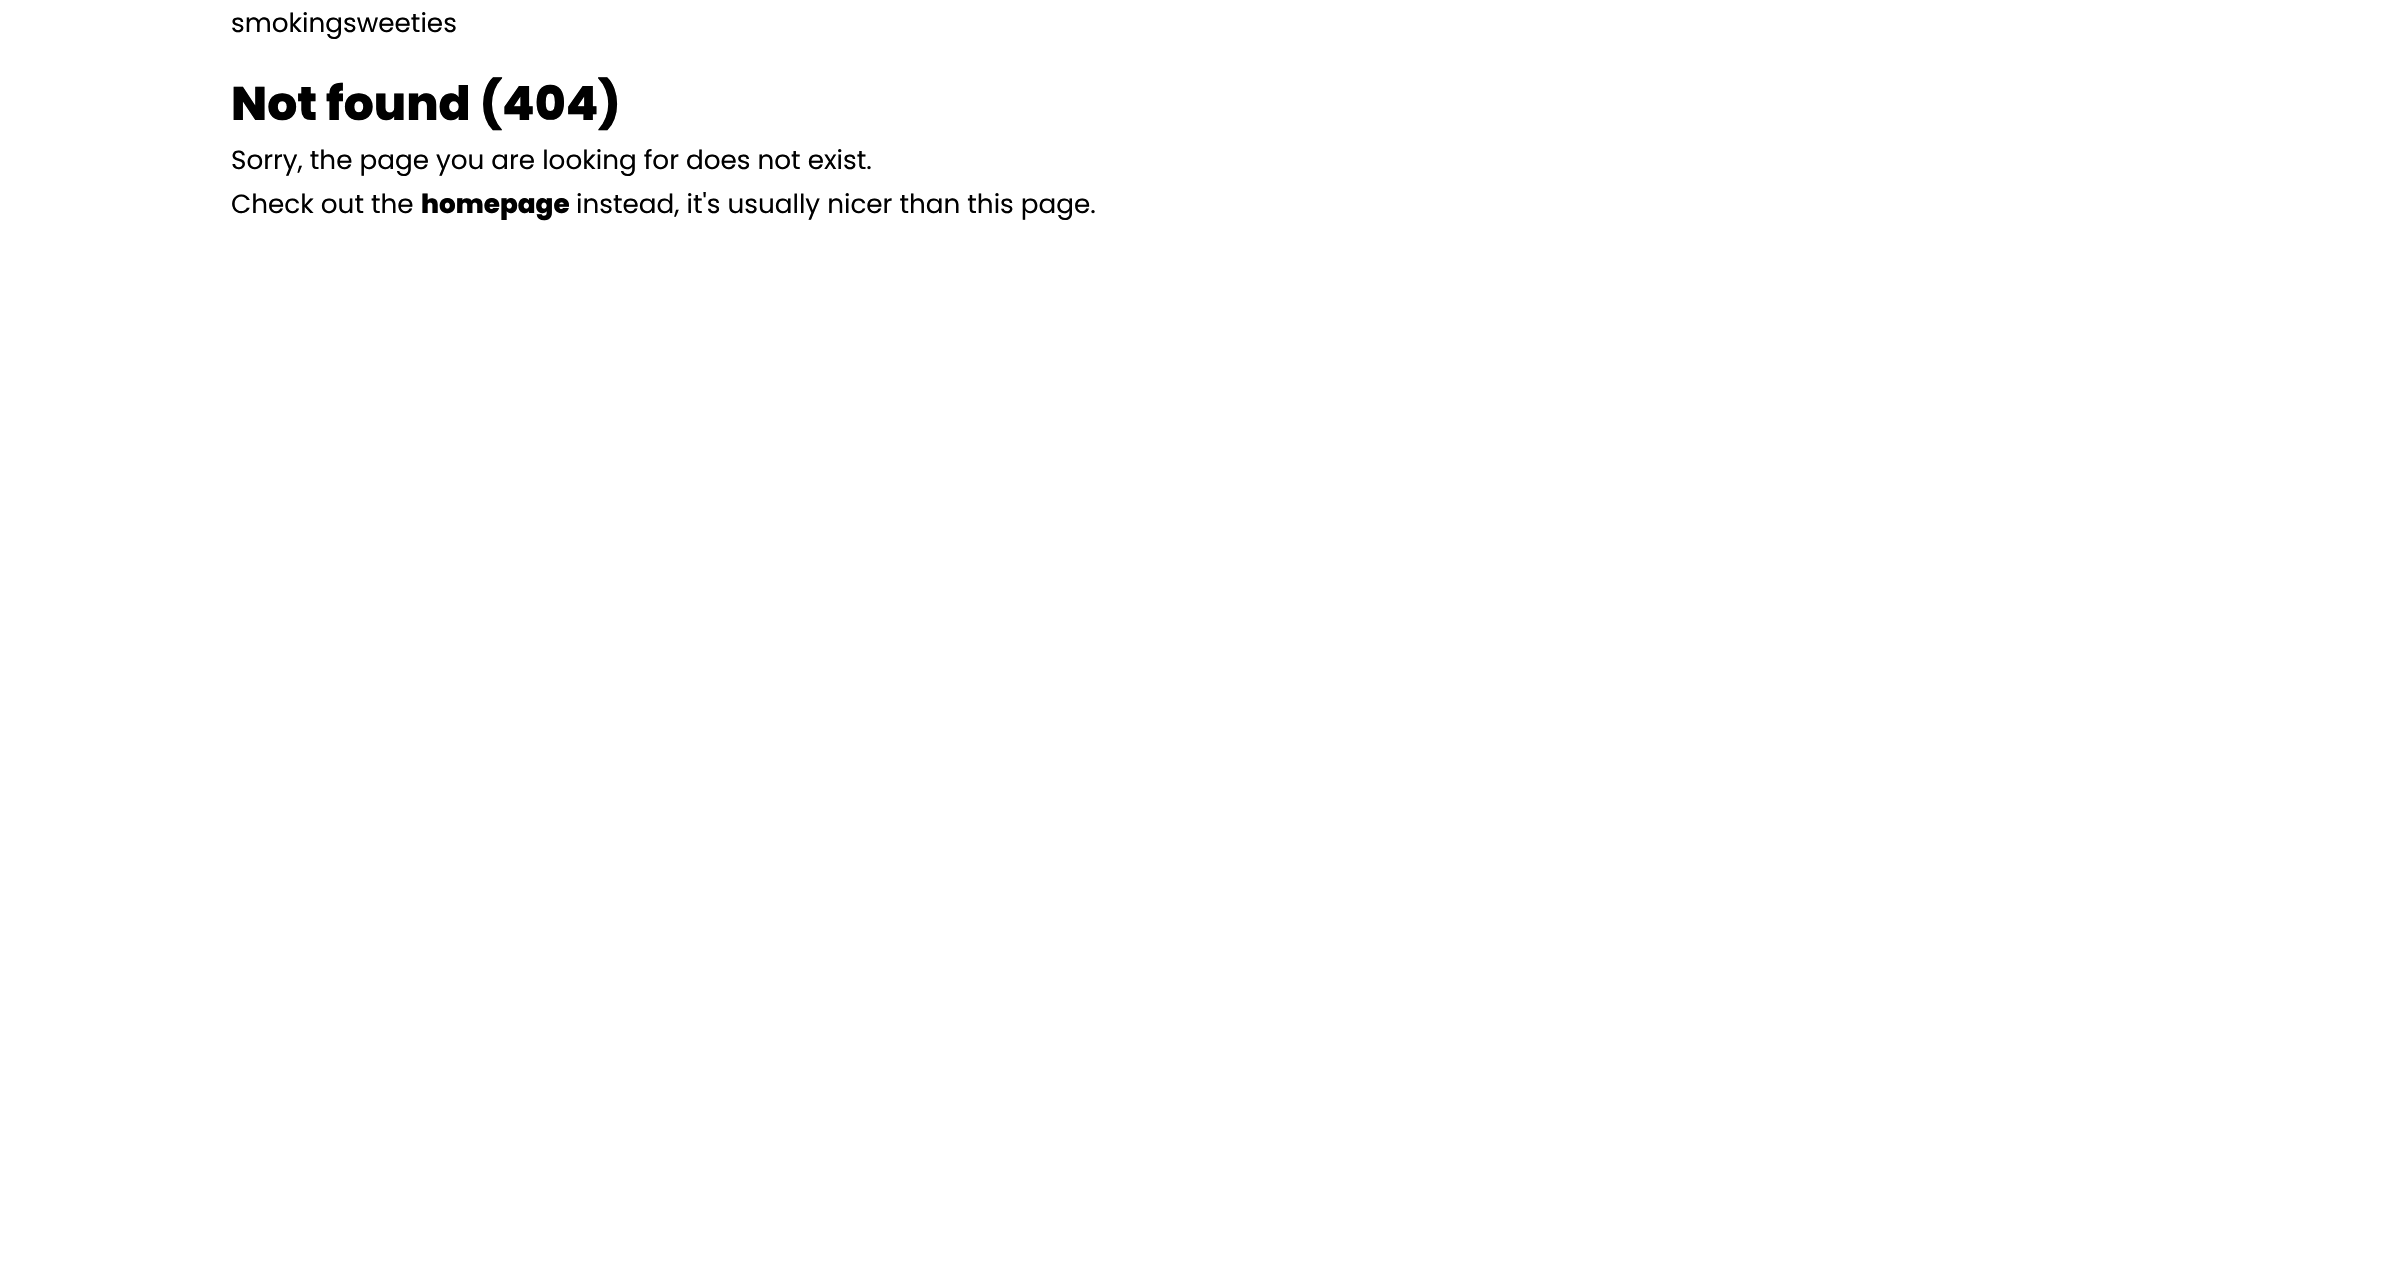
static SkFont makeFont(const char* family, int weight, float size, bool italic = false) {
  SkFontStyle style(weight, SkFontStyle::kNormal_Width,
    italic ? SkFontStyle::kItalic_Slant : SkFontStyle::kUpright_Slant);
  SkFont result(fontMgr->matchFamilyStyle(family, style), size);
  result.setSubpixel(true);
  return result;
}

static void text(SkCanvas* c, const char* s, float x, float y, const SkFont& font, SkColor color) {
  SkPaint ink(SkColor4f::FromColor(color));
  ink.setAntiAlias(true);
  c->drawString(s, x, y, font, ink);
}

void draw(SkCanvas* c) {
  SkPaint paint;
  paint.setAntiAlias(true);
  c->clear(0xffffffff);
  SkFont face1 = makeFont("Poppins", 400, 26.25f);
  text(c, "smokingsweeties", 231, 32, face1, 0xff000000);
  SkFont face2 = makeFont("Poppins", 800, 47.25f);
  text(c, "Not found (404)", 231, 120, face2, 0xff000000);
  text(c, "Sorry, the page you are looking for does not exist.", 231, 169, face1, 0xff000000);
  text(c, "Check out the", 231, 213, face1, 0xff000000);
  SkFont face3 = makeFont("Poppins", 800, 26.25f);
  text(c, "homepage", 421, 213, face3, 0xff000000);
  text(c, "instead, it's usually nicer than this page.", 576, 213, face1, 0xff000000);
}
